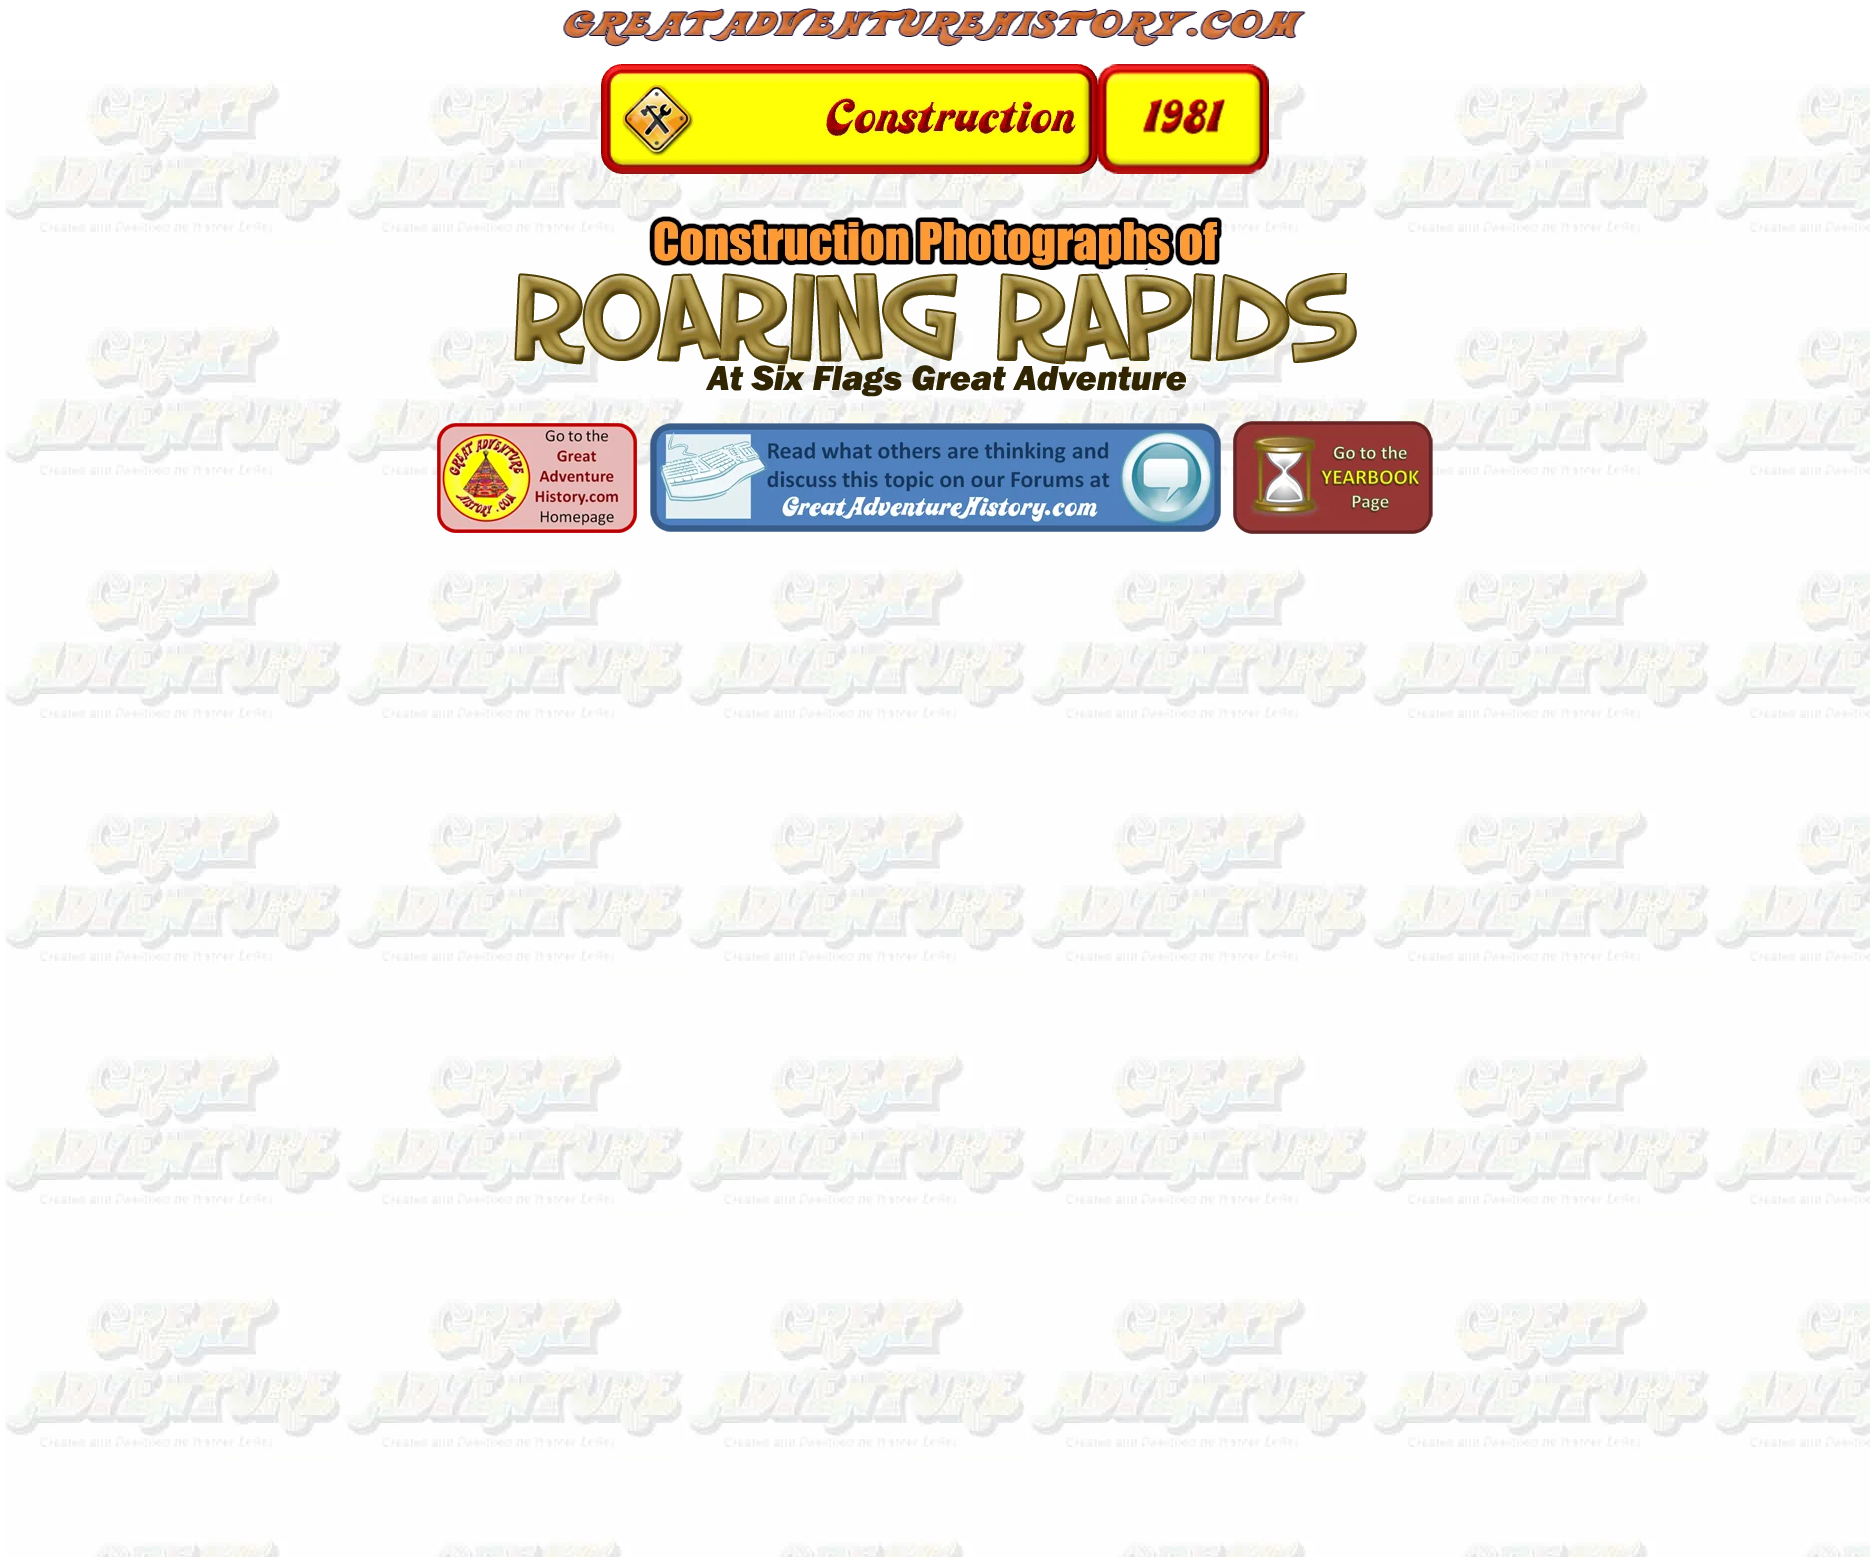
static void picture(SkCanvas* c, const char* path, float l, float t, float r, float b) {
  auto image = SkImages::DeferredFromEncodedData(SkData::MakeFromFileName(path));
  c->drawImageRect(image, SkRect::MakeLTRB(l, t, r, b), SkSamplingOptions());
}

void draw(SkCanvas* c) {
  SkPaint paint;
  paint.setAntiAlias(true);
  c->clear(0xffffffff);
  picture(c, "img_01.png", 5, 80, 1870, 1557);
  picture(c, "img_02.png", 563, 8, 1306, 47);
  picture(c, "img_03.png", 601, 64, 1097, 174);
  picture(c, "img_04.png", 1097, 64, 1269, 174);
  picture(c, "img_05.png", 514, 216, 1357, 397);
  picture(c, "img_06.png", 437, 423, 637, 533);
  picture(c, "img_07.png", 650, 423, 1221, 532);
  picture(c, "img_08.png", 1233, 421, 1433, 534);
}
